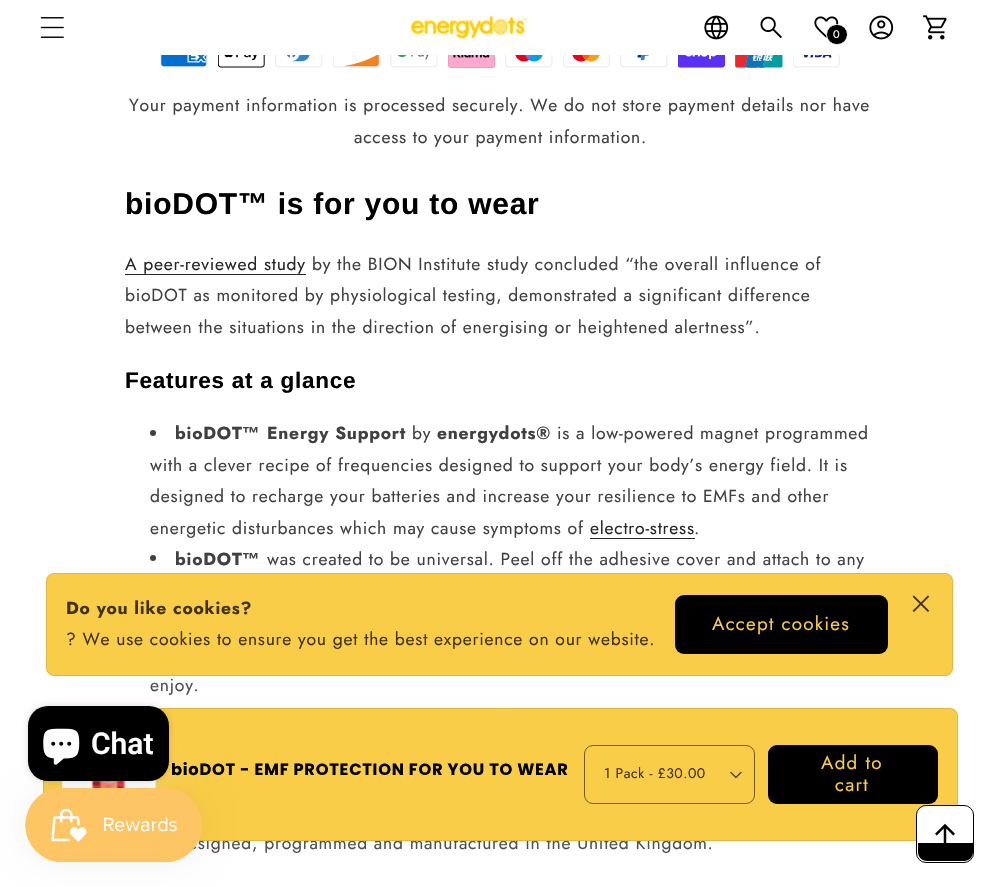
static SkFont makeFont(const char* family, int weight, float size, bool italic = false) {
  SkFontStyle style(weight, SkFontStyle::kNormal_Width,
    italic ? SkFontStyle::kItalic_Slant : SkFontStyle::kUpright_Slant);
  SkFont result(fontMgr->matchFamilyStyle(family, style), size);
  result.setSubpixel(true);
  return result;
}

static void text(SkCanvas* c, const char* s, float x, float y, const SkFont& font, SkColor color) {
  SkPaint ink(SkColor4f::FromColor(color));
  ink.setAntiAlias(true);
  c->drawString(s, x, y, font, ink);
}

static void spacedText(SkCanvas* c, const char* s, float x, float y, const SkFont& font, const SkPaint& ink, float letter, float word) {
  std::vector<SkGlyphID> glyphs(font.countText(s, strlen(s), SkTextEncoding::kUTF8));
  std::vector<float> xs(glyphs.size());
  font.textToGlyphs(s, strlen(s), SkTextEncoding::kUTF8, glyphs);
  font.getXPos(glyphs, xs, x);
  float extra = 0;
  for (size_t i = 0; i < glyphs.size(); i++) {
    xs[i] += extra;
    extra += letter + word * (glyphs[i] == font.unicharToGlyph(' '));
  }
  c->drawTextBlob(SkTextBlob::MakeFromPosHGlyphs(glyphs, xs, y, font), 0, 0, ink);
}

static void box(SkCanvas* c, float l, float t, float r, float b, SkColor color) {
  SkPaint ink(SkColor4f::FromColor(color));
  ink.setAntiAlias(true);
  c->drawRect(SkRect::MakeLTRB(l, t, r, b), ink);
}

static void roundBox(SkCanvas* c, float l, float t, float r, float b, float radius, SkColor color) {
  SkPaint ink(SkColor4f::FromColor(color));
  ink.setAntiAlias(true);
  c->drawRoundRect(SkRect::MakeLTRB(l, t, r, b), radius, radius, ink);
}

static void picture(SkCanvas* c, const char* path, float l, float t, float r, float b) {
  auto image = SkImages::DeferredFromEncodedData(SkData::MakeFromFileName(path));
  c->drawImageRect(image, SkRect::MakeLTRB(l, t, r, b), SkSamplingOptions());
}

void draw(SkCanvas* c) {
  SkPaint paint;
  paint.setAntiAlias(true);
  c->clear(0xffffffff);
  picture(c, "img_01.png", 40, 17, 64, 38);
  picture(c, "img_02.png", 411, 15, 528, 39);
  picture(c, "img_03.png", 704, 15, 729, 40);
  picture(c, "img_04.png", 760, 16, 782, 39);
  picture(c, "img_05.png", 814, 16, 839, 38);
  paint.setColor(0xff000000);
  c->drawRoundRect(SkRect::MakeLTRB(826.5f, 24.5f, 847.5f, 44.5f), 10, 10, paint);
  paint.setStyle(SkPaint::kStroke_Style);
  paint.setStrokeWidth(1);
  paint.setColor(0xffffffff);
  c->drawRoundRect(SkRect::MakeLTRB(826.5f, 24.5f, 847.5f, 44.5f), 10, 10, paint);
  SkFont face1 = makeFont("Jost", 400, 11);
  paint.setStyle(SkPaint::kFill_Style);
  spacedText(c, "0", 833, 38, face1, paint, 0.75f, 0);
  picture(c, "img_06.png", 869, 15, 894, 40);
  picture(c, "img_07.png", 923, 15, 947, 40);
  picture(c, "img_08.png", 160, 55, 208, 68);
  picture(c, "img_09.png", 218, 55, 265, 68);
  picture(c, "img_10.png", 275, 55, 323, 68);
  picture(c, "img_11.png", 333, 55, 380, 68);
  picture(c, "img_12.png", 390, 55, 438, 68);
  picture(c, "img_13.png", 448, 55, 495, 68);
  picture(c, "img_14.png", 505, 55, 553, 68);
  picture(c, "img_15.png", 563, 55, 610, 68);
  picture(c, "img_16.png", 620, 55, 668, 68);
  picture(c, "img_17.png", 678, 55, 725, 68);
  picture(c, "img_18.png", 735, 55, 783, 68);
  picture(c, "img_19.png", 793, 55, 840, 68);
  SkFont face2 = makeFont("Jost", 400, 17.5f);
  paint.setColor(0xff404040);
  spacedText(c, "Your payment information is processed securely. We do not store payment details nor have", 129, 111, face2, paint, 0.75f, 0);
  spacedText(c, "access to your payment information.", 354, 143, face2, paint, 0.75f, 0);
  SkFont face3 = makeFont("Liberation Sans", 700, 30);
  paint.setColor(0xff000000);
  spacedText(c, "bioDOT™ is for you to wear", 125, 214, face3, paint, 0.75f, 0);
  paint.setColor(0xff262626);
  spacedText(c, "A peer-reviewed study", 125, 270, face2, paint, 0.75f, 0);
  box(c, 125, 274, 306, 275, 0xff262626);
  paint.setColor(0xff404040);
  spacedText(c, "by the BION Institute study concluded “the overall influence of", 312, 270, face2, paint, 0.75f, 0);
  spacedText(c, "bioDOT as monitored by physiological testing, demonstrated a significant difference", 125, 301, face2, paint, 0.75f, 0);
  spacedText(c, "between the situations in the direction of energising or heightened alertness”.", 125, 333, face2, paint, 0.75f, 0);
  SkFont face4 = makeFont("Liberation Sans", 700, 22.5f);
  paint.setColor(0xff000000);
  spacedText(c, "Features at a glance", 125, 388, face4, paint, 0.75f, 0);
  paint.setColor(0xff404040);
  c->drawCircle(153, 433, 3, paint);
  SkFont face5 = makeFont("Jost", 700, 17.5f);
  spacedText(c, "bioDOT", 175, 439, face5, paint, 0.75f, 0);
  SkFont face6 = makeFont("Liberation Sans", 700, 17.5f);
  spacedText(c, "™", 242, 439, face6, paint, 0.75f, 0);
  spacedText(c, "Energy Support", 267, 439, face5, paint, 0.75f, 0);
  spacedText(c, "by", 412, 439, face2, paint, 0.75f, 0);
  spacedText(c, "energydots®", 437, 439, face5, paint, 0.75f, 0);
  spacedText(c, "is a low-powered magnet programmed", 557, 439, face2, paint, 0.75f, 0);
  spacedText(c, "with a clever recipe of frequencies designed to support your body’s energy field. It is", 150, 471, face2, paint, 0.75f, 0);
  spacedText(c, "designed to recharge your batteries and increase your resilience to EMFs and other", 150, 502, face2, paint, 0.75f, 0);
  spacedText(c, "energetic disturbances which may cause symptoms of", 150, 534, face2, paint, 0.75f, 0);
  paint.setColor(0xff262626);
  spacedText(c, "electro-stress", 590, 534, face2, paint, 0.75f, 0);
  box(c, 590, 538, 695, 539, 0xff262626);
  paint.setColor(0xff404040);
  spacedText(c, ".", 694, 534, face2, paint, 0.75f, 0);
  c->drawCircle(153, 558, 3, paint);
  spacedText(c, "bioDOT", 175, 565, face5, paint, 0.75f, 0);
  spacedText(c, "™", 242, 565, face6, paint, 0.75f, 0);
  spacedText(c, "was created to be universal. Peel off the adhesive cover and attach to any", 267, 565, face2, paint, 0.75f, 0);
  spacedText(c, "enjoy.", 150, 691, face2, paint, 0.75f, 0);
  spacedText(c, "esigned, programmed and manufactured in the United Kingdom.", 188, 849, face2, paint, 0.75f, 0);
  paint.setColor(0x1affffff);
  paint.setMaskFilter(SkMaskFilter::MakeBlur(kNormal_SkBlurStyle, 12.5f));
  c->drawRoundRect(SkRect::MakeLTRB(59, 588, 965, 691), 8, 8, paint);
  paint.setMaskFilter(nullptr);
  roundBox(c, 46, 573, 953, 676, 8, 0xfffacd48);
  paint.setStyle(SkPaint::kStroke_Style);
  paint.setColor(0x1a000000);
  c->drawRoundRect(SkRect::MakeLTRB(46.5f, 573.5f, 952.5f, 675.5f), 7.5f, 7.5f, paint);
  paint.setStyle(SkPaint::kFill_Style);
  paint.setColor(0xff3f3312);
  spacedText(c, "Do you like cookies?", 66, 614, face5, paint, 0.75f, 0);
  spacedText(c, "? We use cookies to ensure you get the best experience on our website.", 66, 645, face2, paint, 0.75f, 0);
  roundBox(c, 675, 595, 888, 654, 9, 0xff000000);
  SkFont face7 = makeFont("Jost", 400, 18.75f);
  paint.setColor(0xfffacd48);
  spacedText(c, "Accept cookies", 712, 630, face7, paint, 1.25f, 0);
  picture(c, "img_20.png", 912, 595, 930, 612);
  paint.setColor(0x1affffff);
  paint.setMaskFilter(SkMaskFilter::MakeBlur(kNormal_SkBlurStyle, 12.5f));
  c->drawRoundRect(SkRect::MakeLTRB(55, 723, 970, 856), 8, 8, paint);
  paint.setMaskFilter(nullptr);
  roundBox(c, 43, 708, 958, 841, 8, 0xfffacd48);
  paint.setStyle(SkPaint::kStroke_Style);
  paint.setColor(0x1a000000);
  c->drawRoundRect(SkRect::MakeLTRB(43.5f, 708.5f, 957.5f, 840.5f), 7.5f, 7.5f, paint);
  paint.setStyle(SkPaint::kFill_Style);
  paint.setColor(0x1affffff);
  paint.setMaskFilter(SkMaskFilter::MakeBlur(kNormal_SkBlurStyle, 12.5f));
  c->drawRoundRect(SkRect::MakeLTRB(75, 743, 169, 836), 8, 8, paint);
  paint.setMaskFilter(nullptr);
  box(c, 155, 779, 156, 788, 0xfffacd48);
  picture(c, "img_21.png", 62, 779, 157, 788);
  SkFont face8 = makeFont("Poppins", 700, 16.25f);
  paint.setColor(0xff000000);
  spacedText(c, "bioDOT - EMF PROTECTION FOR YOU TO WEAR", 171, 775, face8, paint, 0.75f, 0);
  picture(c, "img_22.png", 730, 771, 742, 778);
  paint.setStyle(SkPaint::kStroke_Style);
  paint.setColor(0xff715c20);
  c->drawRoundRect(SkRect::MakeLTRB(584.5f, 745.5f, 754.5f, 803.5f), 8.5f, 8.5f, paint);
  SkFont face9 = makeFont("Jost", 400, 14);
  paint.setStyle(SkPaint::kFill_Style);
  paint.setColor(0xff3f3312);
  spacedText(c, "1 Pack - £30.00", 604, 778, face9, paint, 0.5f, 0);
  roundBox(c, 768, 745, 938, 804, 9, 0xff000000);
  paint.setColor(0xfffacd48);
  spacedText(c, "Add to", 821, 769, face7, paint, 1.25f, 0);
  spacedText(c, "cart", 835, 791, face7, paint, 1.25f, 0);
  paint.setColor(0x26000000);
  paint.setMaskFilter(SkMaskFilter::MakeBlur(kNormal_SkBlurStyle, 3));
  c->drawRoundRect(SkRect::MakeLTRB(28, 706, 169, 781), 20, 20, paint);
  paint.setMaskFilter(nullptr);
  roundBox(c, 28, 706, 169, 781, 20, 0xff000000);
  picture(c, "img_23.png", 43, 728, 80, 765);
  SkFont face10 = makeFont("Roboto", 600, 30);
  text(c, "Chat", 91, 754, face10, 0xffffffff);
  paint.setColor(0x0d000000);
  paint.setMaskFilter(SkMaskFilter::MakeBlur(kNormal_SkBlurStyle, 15.5f));
  c->drawRoundRect(SkRect::MakeLTRB(25, 788, 203, 863), 37.5f, 37.5f, paint);
  paint.setMaskFilter(nullptr);
  picture(c, "img_24.png", 25, 787, 202, 863);
  paint.setColor(0xffffffff);
  c->drawRoundRect(SkRect::MakeLTRB(916.5f, 805.5f, 973.5f, 862.5f), 9.5f, 9.5f, paint);
  paint.setStyle(SkPaint::kStroke_Style);
  paint.setColor(0xff000000);
  c->drawRoundRect(SkRect::MakeLTRB(916.5f, 805.5f, 973.5f, 862.5f), 9.5f, 9.5f, paint);
  picture(c, "img_25.png", 935, 823, 955, 843);
  paint.setStyle(SkPaint::kFill_Style);
  c->drawPath(SkPathBuilder().moveTo(918, 843).lineTo(973, 843).lineTo(973, 852).cubicTo(973, 857, 969, 861, 964, 861).lineTo(927, 861).cubicTo(922, 861, 918, 857, 918, 852).close().detach(), paint);
}
